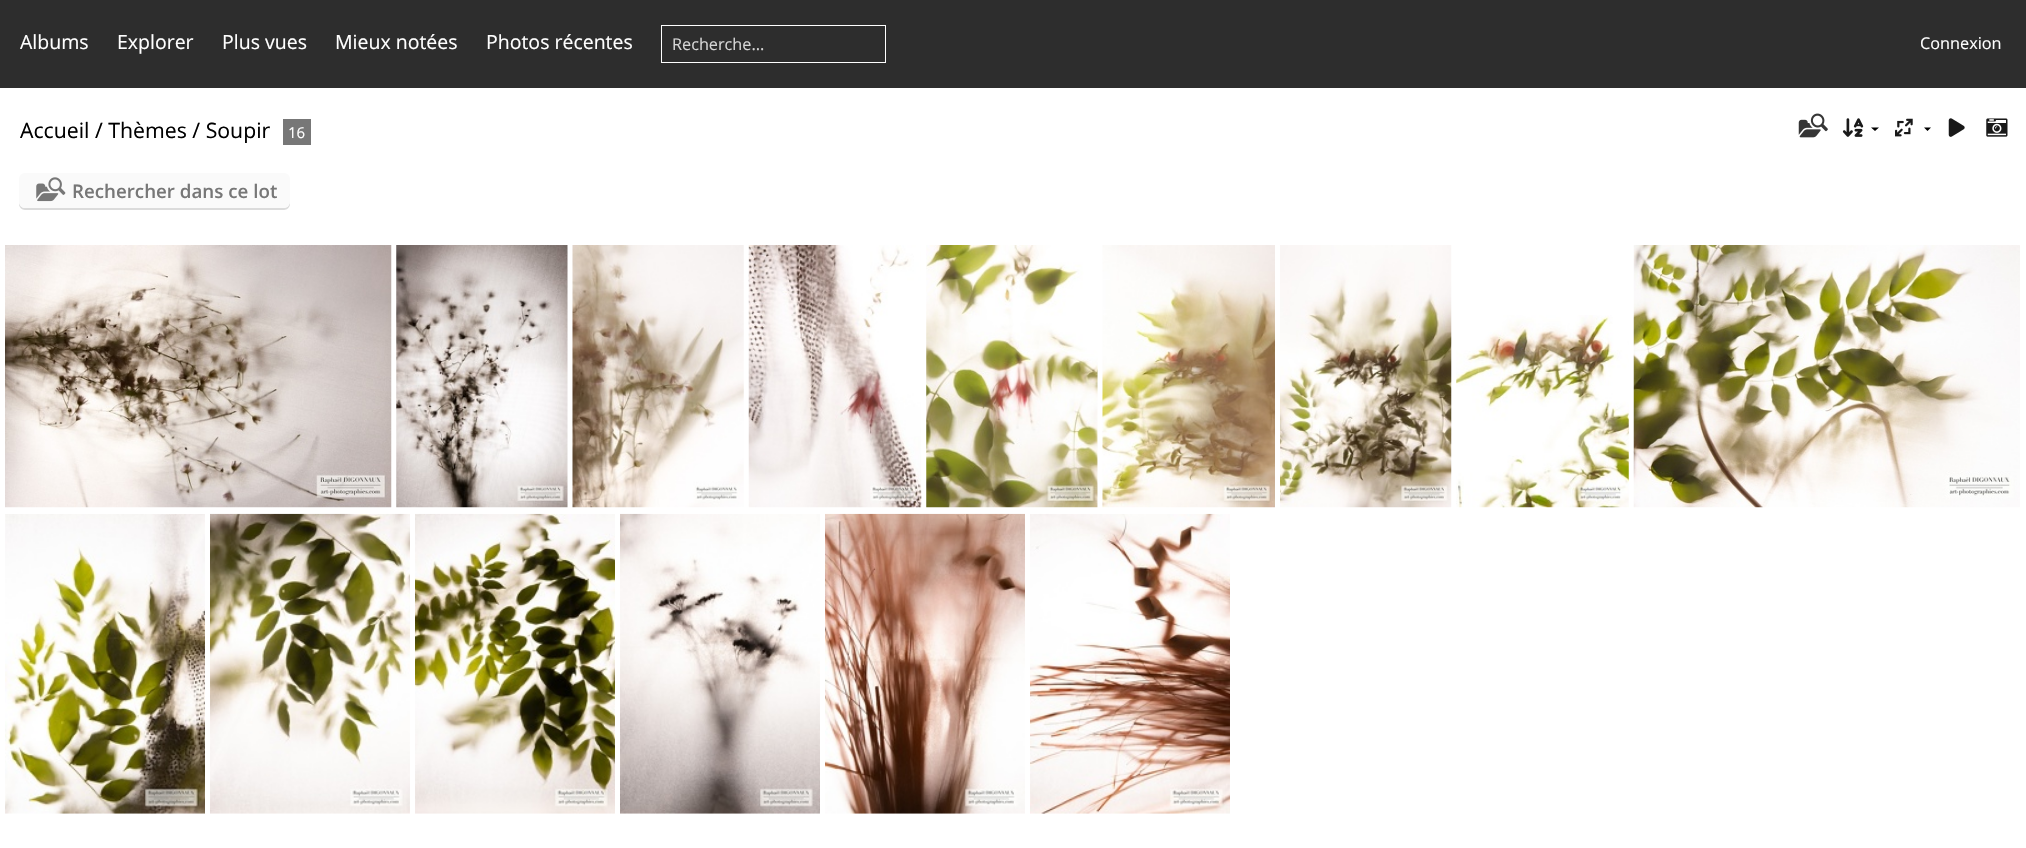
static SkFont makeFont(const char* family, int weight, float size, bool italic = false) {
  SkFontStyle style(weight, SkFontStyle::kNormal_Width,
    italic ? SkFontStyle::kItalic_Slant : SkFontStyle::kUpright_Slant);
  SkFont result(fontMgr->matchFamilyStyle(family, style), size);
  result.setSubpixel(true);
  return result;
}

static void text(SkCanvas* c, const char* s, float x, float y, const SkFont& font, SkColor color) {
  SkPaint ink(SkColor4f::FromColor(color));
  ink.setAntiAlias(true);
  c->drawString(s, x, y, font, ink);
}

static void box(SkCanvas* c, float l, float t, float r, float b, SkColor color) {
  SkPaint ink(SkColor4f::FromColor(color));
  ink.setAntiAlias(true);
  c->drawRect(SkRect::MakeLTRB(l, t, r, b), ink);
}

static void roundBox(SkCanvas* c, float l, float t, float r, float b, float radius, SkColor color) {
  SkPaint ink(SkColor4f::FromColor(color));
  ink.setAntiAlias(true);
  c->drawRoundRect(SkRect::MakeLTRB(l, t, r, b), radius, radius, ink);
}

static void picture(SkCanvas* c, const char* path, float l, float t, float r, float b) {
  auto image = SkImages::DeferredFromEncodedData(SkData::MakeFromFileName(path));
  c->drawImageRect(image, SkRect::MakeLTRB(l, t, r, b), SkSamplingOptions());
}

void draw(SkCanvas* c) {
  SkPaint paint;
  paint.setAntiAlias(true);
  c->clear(0xffffffff);
  box(c, 0, 0, 2026, 88, 0xff2d2d2d);
  SkFont face1 = makeFont("Open Sans", 400, 19.5f);
  text(c, "Albums", 20, 49, face1, 0xffffffff);
  text(c, "Explorer", 117, 49, face1, 0xffffffff);
  text(c, "Plus vues", 222, 49, face1, 0xffffffff);
  text(c, "Mieux notées", 335, 49, face1, 0xffffffff);
  text(c, "Photos récentes", 486, 49, face1, 0xffffffff);
  paint.setStyle(SkPaint::kStroke_Style);
  paint.setStrokeWidth(1);
  paint.setColor(0xffffffff);
  c->drawRect(SkRect::MakeLTRB(661.5f, 25.5f, 885.5f, 62.5f), paint);
  SkFont face2 = makeFont("Open Sans", 400, 16.25f);
  text(c, "Recherche...", 672, 50, face2, 0xffd6d6d6);
  text(c, "Connexion", 1920, 49, face2, 0xffffffff);
  SkFont face3 = makeFont("Open Sans", 400, 21.25f);
  text(c, "Accueil / Thèmes / Soupir", 20, 138, face3, 0xff000000);
  box(c, 283, 119, 311, 145, 0xff777777);
  SkFont face4 = makeFont("Open Sans", 400, 15);
  text(c, "16", 288, 138, face4, 0xffffffff);
  picture(c, "img_01.png", 1798, 113, 1828, 138);
  picture(c, "img_02.png", 1842, 118, 1864, 137);
  paint.setStyle(SkPaint::kFill_Style);
  paint.setColor(0xff000000);
  c->drawPath(SkPathBuilder().moveTo(1871, 127.5f).lineTo(1879, 127.5f).lineTo(1875, 131).close().moveTo(1924, 127.5f).lineTo(1931, 127.5f).lineTo(1927.5f, 131).close().detach(), paint);
  picture(c, "img_03.png", 1895, 118, 1913, 137);
  picture(c, "img_04.png", 1948, 118, 1965, 137);
  picture(c, "img_05.png", 1986, 118, 2008, 137);
  paint.setColor(0xffdbdbdb);
  c->drawPath(SkPathBuilder().moveTo(19, 203).lineTo(19, 204).cubicTo(19, 207, 22, 210, 25, 210).lineTo(284, 210).cubicTo(287, 210, 290, 207, 290, 204).lineTo(290, 201).cubicTo(290, 205, 287, 208, 284, 208).lineTo(25, 208).cubicTo(22, 208, 20, 206, 19, 203).close().detach(), paint);
  roundBox(c, 19, 173, 290, 208, 6, 0xfffafafa);
  picture(c, "img_06.png", 36, 177, 66, 202);
  SkFont face5 = makeFont("Open Sans", 600, 18.75f);
  text(c, "Rechercher dans ce lot", 72, 198, face5, 0xff777777);
  picture(c, "img_07.png", 5, 245, 392, 508);
  picture(c, "img_08.png", 396, 245, 568, 508);
  picture(c, "img_09.png", 572, 245, 744, 508);
  picture(c, "img_10.png", 748, 245, 922, 508);
  picture(c, "img_11.png", 926, 245, 1098, 508);
  picture(c, "img_12.png", 1102, 245, 1275, 508);
  picture(c, "img_13.png", 1280, 245, 1452, 508);
  picture(c, "img_14.png", 1456, 315, 1629, 508);
  picture(c, "img_15.png", 1633, 245, 2020, 508);
  picture(c, "img_16.png", 5, 514, 205, 814);
  picture(c, "img_17.png", 210, 513, 410, 814);
  picture(c, "img_18.png", 415, 513, 615, 814);
  picture(c, "img_19.png", 620, 513, 820, 814);
  picture(c, "img_20.png", 825, 513, 1025, 814);
  picture(c, "img_21.png", 1030, 513, 1230, 814);
}
